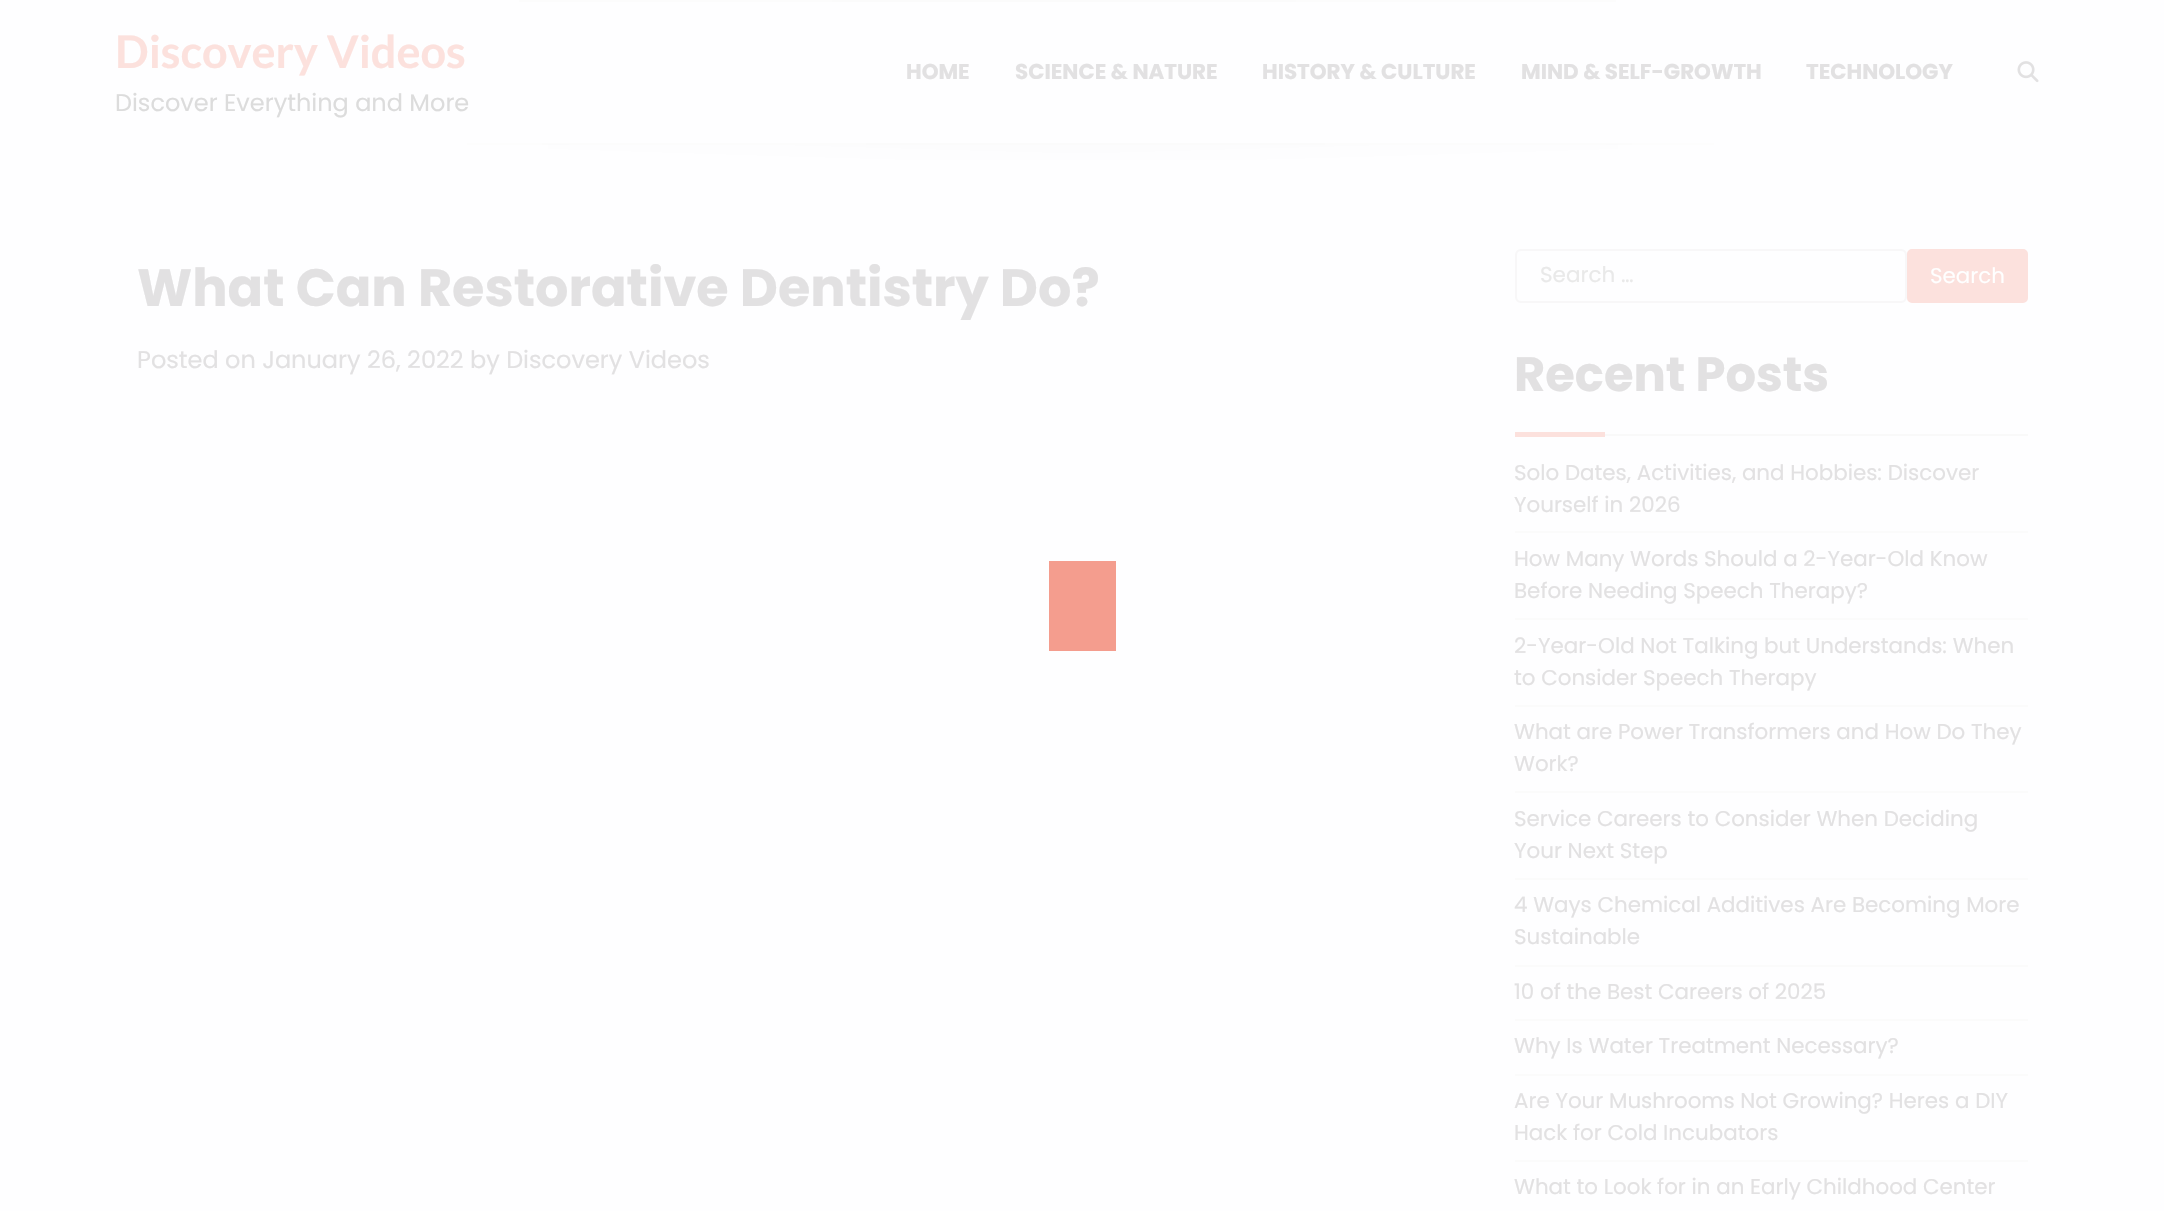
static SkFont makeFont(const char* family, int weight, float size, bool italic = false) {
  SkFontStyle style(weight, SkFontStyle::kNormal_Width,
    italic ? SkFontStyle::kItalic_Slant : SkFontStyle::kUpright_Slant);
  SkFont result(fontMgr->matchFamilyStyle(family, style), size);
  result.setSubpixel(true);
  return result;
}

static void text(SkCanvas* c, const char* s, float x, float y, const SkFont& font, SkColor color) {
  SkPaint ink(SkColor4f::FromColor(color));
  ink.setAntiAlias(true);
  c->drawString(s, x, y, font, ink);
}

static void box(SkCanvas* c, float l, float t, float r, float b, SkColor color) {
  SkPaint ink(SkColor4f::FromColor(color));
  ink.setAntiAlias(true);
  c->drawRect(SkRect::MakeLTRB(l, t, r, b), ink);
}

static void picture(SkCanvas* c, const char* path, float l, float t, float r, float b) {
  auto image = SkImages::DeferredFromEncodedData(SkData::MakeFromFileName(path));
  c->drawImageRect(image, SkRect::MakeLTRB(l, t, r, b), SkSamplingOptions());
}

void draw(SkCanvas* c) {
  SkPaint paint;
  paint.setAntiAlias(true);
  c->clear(0xfffefeff);
  {
    const SkColor colors[] = {0xffffffff, 0xfffcfcfc, 0xfffbfbfb, 0xfffcfcfc, 0xffffffff};
    const float stops[] = {0, 0.25f, 0.49f, 0.73f, 1};
    const SkPoint ends[] = {{116, 0.8f}, {2051, 0.7f}};
    paint.setShader(SkGradientShader::MakeLinear(ends, colors, stops, 5, SkTileMode::kClamp));
    paint.setAlpha(255);
  }
  c->drawRect(SkRect::MakeLTRB(519, 0, 1616, 2), paint);
  SkFont face1 = makeFont("Lato", 700, 45);
  text(c, "Discovery Videos", 115, 68, face1, 0xfffce1dd);
  SkFont face2 = makeFont("Poppins", 400, 24);
  text(c, "Discover Everything and More", 115, 111, face2, 0xffdcdcdc);
  SkFont face3 = makeFont("Poppins", 700, 21.4f);
  text(c, "HOME", 906, 79, face3, 0xffe2e1e2);
  text(c, "SCIENCE & NATURE", 1015, 79, face3, 0xffe2e1e2);
  text(c, "HISTORY & CULTURE", 1262, 79, face3, 0xffe2e1e2);
  text(c, "MIND & SELF-GROWTH", 1521, 79, face3, 0xffe2e1e2);
  text(c, "TECHNOLOGY", 1806, 79, face3, 0xffe2e1e2);
  picture(c, "img_01.png", 2017, 61, 2039, 83);
  picture(c, "img_02.png", 548, 144, 1618, 160);
  {
    const SkColor colors[] = {0x00fbfbfb, 0xb5fbfbfb, 0xfffbfbfb, 0xc7fbfbfb, 0x00fbfbfb};
    const float stops[] = {0, 0.25f, 0.49f, 0.73f, 1};
    const SkPoint ends[] = {{116, 143}, {2051, 143}};
    paint.setShader(SkGradientShader::MakeLinear(ends, colors, stops, 5, SkTileMode::kClamp));
    paint.setAlpha(255);
  }
  c->drawRect(SkRect::MakeLTRB(467, 143, 1714, 145), paint);
  SkFont face4 = makeFont("Poppins", 700, 52.5f);
  text(c, "What Can Restorative Dentistry Do?", 137, 306, face4, 0xffe2e1e2);
  text(c, "Posted on January 26, 2022 by Discovery Videos", 137, 368, face2, 0xffe2e1e2);
  paint.setStyle(SkPaint::kStroke_Style);
  paint.setStrokeWidth(2);
  paint.setShader(nullptr);
  paint.setColor(0xfff8f7f8);
  c->drawRoundRect(SkRect::MakeLTRB(1516, 250, 1906, 302), 5, 5, paint);
  SkFont face5 = makeFont("Poppins", 400, 21.5f);
  text(c, "Search …", 1540, 282, face5, 0xffe9e9e9);
  paint.setStyle(SkPaint::kFill_Style);
  paint.setColor(0xfffce1dd);
  c->drawRoundRect(SkRect::MakeLTRB(1908, 250, 2027, 302), 4, 4, paint);
  paint.setStyle(SkPaint::kStroke_Style);
  c->drawRoundRect(SkRect::MakeLTRB(1908, 250, 2027, 302), 4, 4, paint);
  SkFont face6 = makeFont("Poppins", 400, 21.4f);
  text(c, "Search", 1930, 283, face6, 0xffffffff);
  box(c, 1605, 434, 2028, 436, 0xfff9f9f9);
  SkFont face7 = makeFont("Poppins", 700, 48);
  text(c, "Recent Posts", 1514, 391, face7, 0xffe2e1e2);
  box(c, 1515, 432, 1605, 437, 0xfffce1dd);
  box(c, 1515, 531, 2028, 533, 0xfffbfbfb);
  text(c, "Solo Dates, Activities, and Hobbies: Discover", 1514, 480, face6, 0xffe2e1e2);
  text(c, "Yourself in 2026", 1514, 512, face6, 0xffe2e1e2);
  box(c, 1515, 618, 2028, 620, 0xfffbfbfb);
  text(c, "How Many Words Should a 2-Year-Old Know", 1514, 566, face6, 0xffe2e1e2);
  text(c, "Before Needing Speech Therapy?", 1514, 598, face6, 0xffe2e1e2);
  box(c, 1515, 705, 2028, 707, 0xfffbfbfb);
  text(c, "2-Year-Old Not Talking but Understands: When", 1514, 653, face6, 0xffe2e1e2);
  text(c, "to Consider Speech Therapy", 1514, 685, face6, 0xffe2e1e2);
  box(c, 1515, 791, 2028, 793, 0xfffbfbfb);
  text(c, "What are Power Transformers and How Do They", 1514, 739, face6, 0xffe2e1e2);
  text(c, "Work?", 1514, 771, face6, 0xffe2e1e2);
  box(c, 1515, 878, 2028, 880, 0xfffbfbfb);
  text(c, "Service Careers to Consider When Deciding", 1514, 826, face6, 0xffe2e1e2);
  text(c, "Your Next Step", 1514, 858, face6, 0xffe2e1e2);
  box(c, 1515, 965, 2028, 967, 0xfffbfbfb);
  text(c, "4 Ways Chemical Additives Are Becoming More", 1514, 912, face6, 0xffe2e1e2);
  text(c, "Sustainable", 1514, 944, face6, 0xffe2e1e2);
  box(c, 1515, 1019, 2028, 1021, 0xfffbfbfb);
  text(c, "10 of the Best Careers of 2025", 1514, 999, face6, 0xffe2e1e2);
  box(c, 1515, 1074, 2028, 1076, 0xfffbfbfb);
  text(c, "Why Is Water Treatment Necessary?", 1514, 1053, face6, 0xffe2e1e2);
  box(c, 1515, 1160, 2028, 1162, 0xfffbfbfb);
  text(c, "Are Your Mushrooms Not Growing? Heres a DIY", 1514, 1108, face6, 0xffe2e1e2);
  text(c, "Hack for Cold Incubators", 1514, 1140, face6, 0xffe2e1e2);
  text(c, "What to Look for in an Early Childhood Center", 1514, 1194, face6, 0xffe2e1e2);
  box(c, 1049, 561, 1116, 651, 0xfff49d8e);
}
